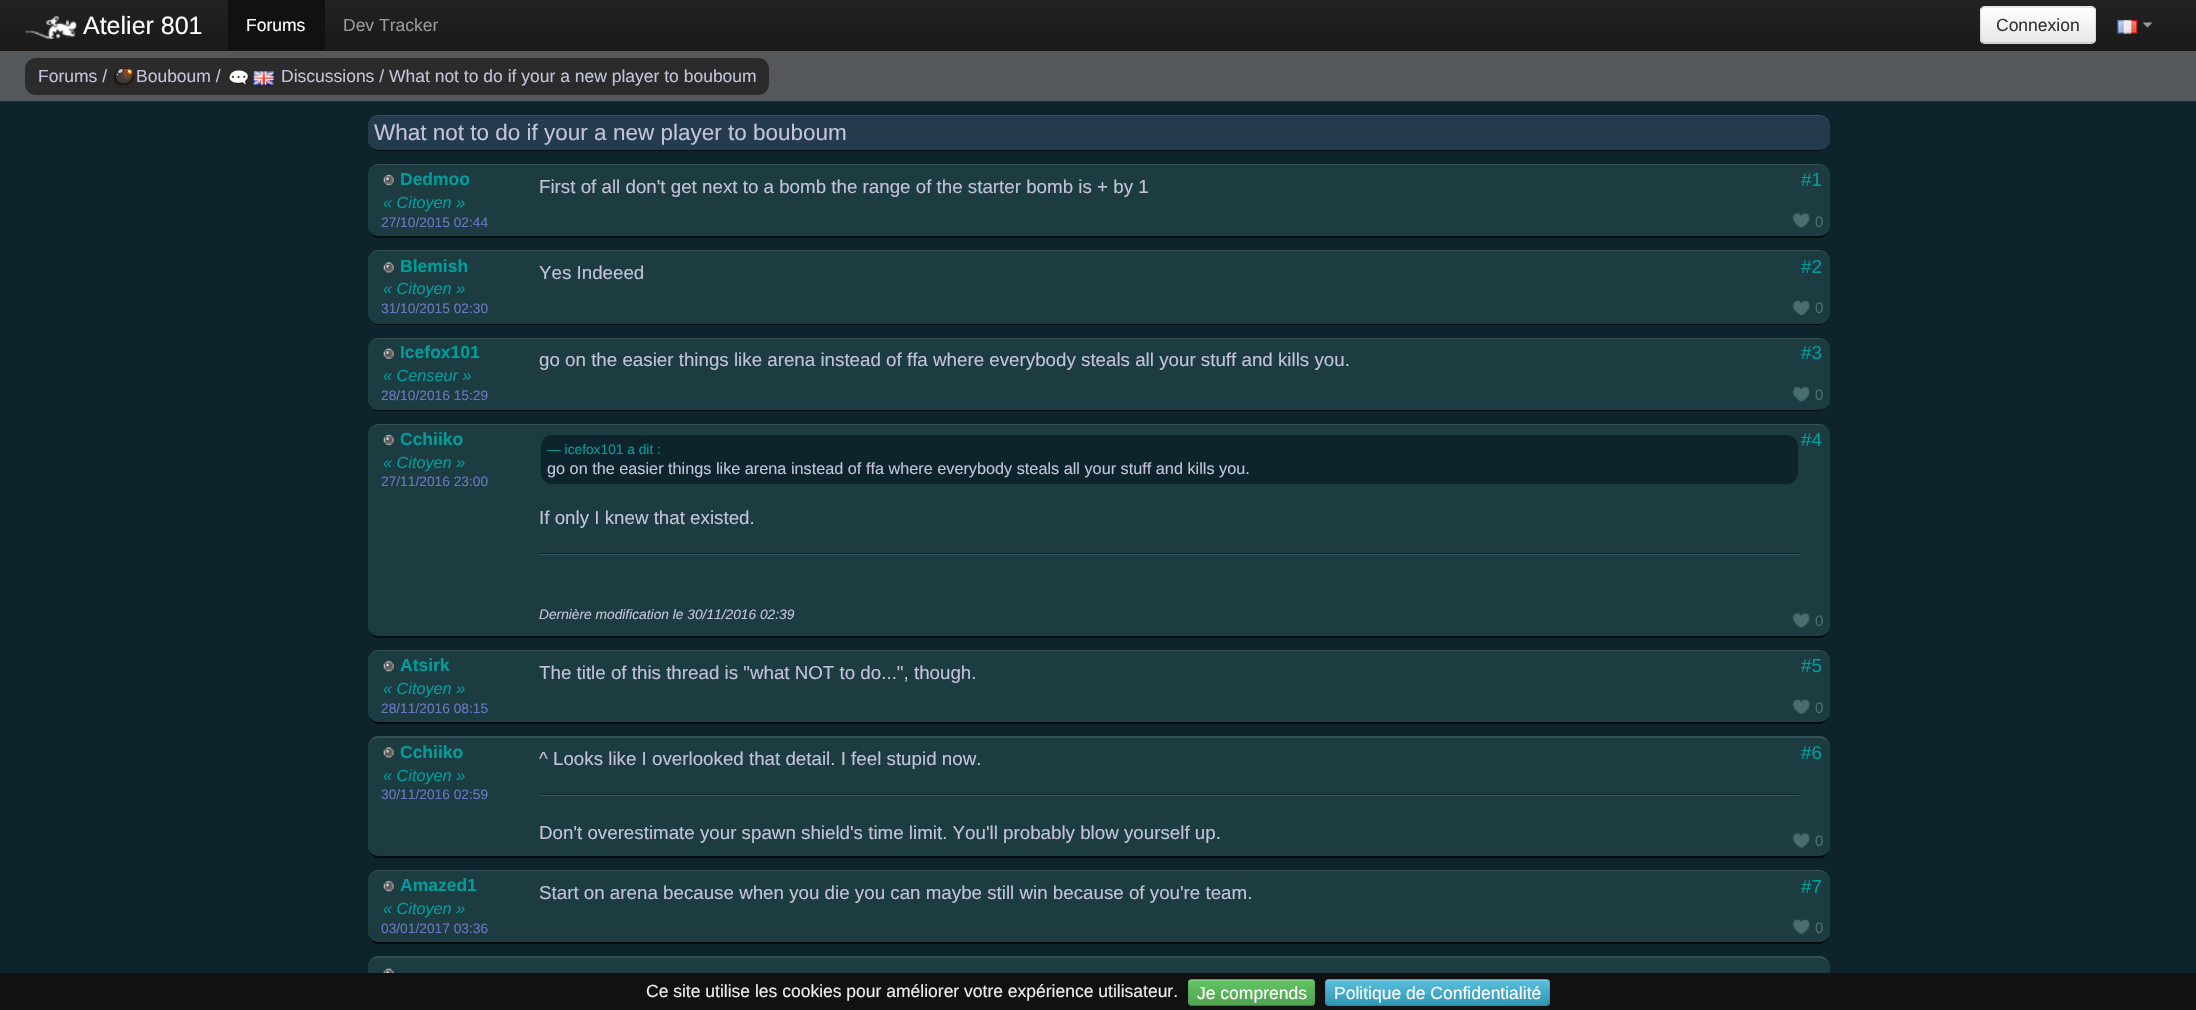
static SkFont makeFont(const char* family, int weight, float size, bool italic = false) {
  SkFontStyle style(weight, SkFontStyle::kNormal_Width,
    italic ? SkFontStyle::kItalic_Slant : SkFontStyle::kUpright_Slant);
  SkFont result(fontMgr->matchFamilyStyle(family, style), size);
  result.setSubpixel(true);
  return result;
}

static void text(SkCanvas* c, const char* s, float x, float y, const SkFont& font, SkColor color) {
  SkPaint ink(SkColor4f::FromColor(color));
  ink.setAntiAlias(true);
  c->drawString(s, x, y, font, ink);
}

static void box(SkCanvas* c, float l, float t, float r, float b, SkColor color) {
  SkPaint ink(SkColor4f::FromColor(color));
  ink.setAntiAlias(true);
  c->drawRect(SkRect::MakeLTRB(l, t, r, b), ink);
}

static void roundBox(SkCanvas* c, float l, float t, float r, float b, float radius, SkColor color) {
  SkPaint ink(SkColor4f::FromColor(color));
  ink.setAntiAlias(true);
  c->drawRoundRect(SkRect::MakeLTRB(l, t, r, b), radius, radius, ink);
}

static void picture(SkCanvas* c, const char* path, float l, float t, float r, float b) {
  auto image = SkImages::DeferredFromEncodedData(SkData::MakeFromFileName(path));
  c->drawImageRect(image, SkRect::MakeLTRB(l, t, r, b), SkSamplingOptions());
}

void draw(SkCanvas* c) {
  SkPaint paint;
  paint.setAntiAlias(true);
  c->clear(0xff0e242d);
  {
    const SkColor colors[] = {0xff222222, 0xff111111};
    const float stops[] = {0, 1};
    const SkPoint ends[] = {{1098, 0}, {1098, 101}};
    paint.setShader(SkGradientShader::MakeLinear(ends, colors, stops, 2, SkTileMode::kClamp));
    paint.setAlpha(255);
  }
  c->drawRect(SkRect::MakeLTRB(0, 0, 2196, 51), paint);
  box(c, 0, 101, 2196, 102, 0xff252525);
  picture(c, "img_01.png", 25, 16, 77, 39);
  SkFont face1 = makeFont("Liberation Sans", 400, 25);
  text(c, "Atelier 801", 83, 34, face1, 0xffffffff);
  box(c, 228, 0, 325, 50, 0xff111111);
  SkFont face2 = makeFont("Liberation Sans", 400, 17.5f);
  text(c, "Forums", 246, 31, face2, 0xffffffff);
  text(c, "Dev Tracker", 343, 31, face2, 0xff999999);
  roundBox(c, 1980, 6, 2096, 44, 5, 0xfff5f5f5);
  c->save();
  c->clipPath(SkPathBuilder().moveTo(1985, 6).lineTo(2091, 6).cubicTo(2094, 6, 2096, 8, 2096, 11).lineTo(2096, 39).cubicTo(2096, 42, 2094, 44, 2091, 44).lineTo(1985, 44).cubicTo(1982, 44, 1980, 42, 1980, 39).lineTo(1980, 11).cubicTo(1980, 8, 1982, 6, 1985, 6).close().detach(), true);
  {
    const SkColor colors[] = {0xffffffff, 0xffe6e6e6};
    const float stops[] = {0, 1};
    const SkPoint ends[] = {{2038, 7.5f}, {2038, 43}};
    paint.setShader(SkGradientShader::MakeLinear(ends, colors, stops, 2, SkTileMode::kClamp));
    paint.setAlpha(255);
  }
  c->drawRect(SkRect::MakeLTRB(1980, 8, 2096, 43), paint);
  c->restore();
  paint.setStyle(SkPaint::kStroke_Style);
  paint.setStrokeWidth(1.2f);
  paint.setShader(nullptr);
  paint.setColor(0xffb3b3b3);
  c->drawPath(SkPathBuilder().moveTo(2094.5f, 42).cubicTo(2093.5f, 42.5f, 2092.5f, 43, 2091, 43).lineTo(1985, 43).cubicTo(1984, 43, 1982.5f, 42.5f, 1982, 42).detach(), paint);
  paint.setColor(0x1a000000);
  c->drawPath(SkPathBuilder().moveTo(1982, 42).cubicTo(1980, 40, 1980.5f, 36.5f, 1980.5f, 34).lineTo(1980.5f, 25).cubicTo(1980.5f, 3, 1978, 7, 2002.5f, 7).lineTo(2073.5f, 7).cubicTo(2100.5f, 7, 2095.5f, 3.5f, 2095.5f, 29.5f).cubicTo(2095.5f, 32.5f, 2097, 39, 2094.5f, 42).detach(), paint);
  text(c, "Connexion", 1996, 31, face2, 0xff333333);
  picture(c, "img_02.png", 2117, 19, 2138, 34);
  paint.setStyle(SkPaint::kFill_Style);
  paint.setColor(0xff999999);
  c->drawPath(SkPathBuilder().moveTo(2142.5f, 22.5f).lineTo(2152.5f, 22.5f).lineTo(2147.5f, 27.5f).close().detach(), paint);
  box(c, 0, 51, 2196, 101, 0xff55585a);
  roundBox(c, 25, 58, 769, 95, 11, 0xff2b2b2b);
  text(c, "Forums /", 38, 82, face2, 0xffc2c2da);
  picture(c, "img_03.png", 113, 67, 134, 88);
  text(c, "Bouboum /", 136, 82, face2, 0xffc2c2da);
  picture(c, "img_04.png", 228, 69, 249, 86);
  picture(c, "img_05.png", 253, 71, 274, 85);
  text(c, "Discussions / What not to do if your a new player to bouboum", 281, 82, face2, 0xffc2c2da);
  roundBox(c, 368, 115, 1830, 151, 11, 0xff243b4d);
  paint.setColor(0x1affffff);
  c->drawPath(SkPathBuilder().moveTo(379, 115).cubicTo(373, 115, 368, 120, 368, 126).cubicTo(368, 121, 373, 116, 379, 116).lineTo(1819, 116).cubicTo(1825, 116, 1830, 121, 1830, 126).cubicTo(1830, 120, 1825, 115, 1819, 115).close().detach(), paint);
  paint.setColor(0xcc000000);
  c->drawPath(SkPathBuilder().moveTo(1819, 151).cubicTo(1825, 151, 1830, 146, 1830, 140).cubicTo(1830, 146, 1825, 150, 1819, 150).lineTo(379, 150).cubicTo(373, 150, 368, 146, 368, 140).cubicTo(368, 146, 373, 151, 379, 151).close().detach(), paint);
  SkFont face3 = makeFont("Liberation Sans", 400, 22.5f);
  text(c, "What not to do if your a new player to bouboum", 374, 140, face3, 0xffc2c2da);
  roundBox(c, 368, 164, 1830, 238, 11, 0xff1c3c41);
  paint.setColor(0x1affffff);
  c->drawPath(SkPathBuilder().moveTo(379, 164).cubicTo(373, 164, 368, 169, 368, 175).cubicTo(368, 169, 373, 165, 379, 165).lineTo(1819, 165).cubicTo(1825, 165, 1830, 169, 1830, 175).cubicTo(1830, 169, 1825, 164, 1819, 164).close().detach(), paint);
  paint.setColor(0xcc000000);
  c->drawPath(SkPathBuilder().moveTo(1822, 238).cubicTo(1827, 236, 1830, 231, 1830, 226).cubicTo(1830, 232, 1825, 236, 1819, 236).lineTo(379, 236).cubicTo(373, 236, 368, 232, 368, 226).cubicTo(368, 231, 371, 236, 376, 238).close().detach(), paint);
  picture(c, "img_06.png", 383, 174, 395, 186);
  SkFont face4 = makeFont("Liberation Sans", 700, 17.5f);
  text(c, "Dedmoo", 400, 185, face4, 0xff009d9d);
  SkFont face5 = makeFont("Liberation Sans", 400, 16.25f, true);
  text(c, "« Citoyen »", 383, 208, face5, 0xff009d9d);
  SkFont face6 = makeFont("Liberation Sans", 400, 13.75f);
  text(c, "27/10/2015 02:44", 381, 227, face6, 0xff6c77c1);
  SkFont face7 = makeFont("Liberation Sans", 400, 18.75f);
  text(c, "#1", 1801, 186, face7, 0xff009d9d);
  picture(c, "img_07.png", 1792, 212, 1810, 228);
  SkFont face8 = makeFont("Liberation Sans", 400, 15);
  text(c, "0", 1815, 227, face8, 0xff4a6e6e);
  text(c, "First of all don't get next to a bomb the range of the starter bomb is + by 1", 539, 193, face7, 0xffc2c2da);
  roundBox(c, 368, 250, 1830, 325, 11, 0xff1c3c41);
  paint.setColor(0x1affffff);
  c->drawPath(SkPathBuilder().moveTo(379, 250).cubicTo(373, 250, 368, 255, 368, 261).cubicTo(368, 256, 373, 251, 379, 251).lineTo(1819, 251).cubicTo(1825, 251, 1830, 256, 1830, 261).cubicTo(1830, 255, 1825, 250, 1819, 250).close().detach(), paint);
  paint.setColor(0xcc000000);
  c->drawPath(SkPathBuilder().moveTo(1819, 325).cubicTo(1825, 325, 1830, 320, 1830, 314).cubicTo(1830, 319, 1825, 324, 1819, 324).lineTo(379, 324).cubicTo(373, 324, 368, 319, 368, 314).cubicTo(368, 320, 373, 325, 379, 325).close().detach(), paint);
  picture(c, "img_08.png", 383, 261, 395, 274);
  text(c, "Blemish", 400, 272, face4, 0xff009d9d);
  text(c, "« Citoyen »", 383, 294, face5, 0xff009d9d);
  text(c, "31/10/2015 02:30", 381, 313, face6, 0xff6c77c1);
  text(c, "#2", 1801, 273, face7, 0xff009d9d);
  picture(c, "img_09.png", 1792, 300, 1810, 315);
  text(c, "0", 1815, 313, face8, 0xff4a6e6e);
  text(c, "Yes Indeeed", 539, 279, face7, 0xffc2c2da);
  roundBox(c, 368, 338, 1830, 411, 11, 0xff1c3c41);
  paint.setColor(0x1affffff);
  c->drawPath(SkPathBuilder().moveTo(379, 338).cubicTo(373, 338, 368, 343, 368, 349).cubicTo(368, 343, 373, 339, 379, 339).lineTo(1819, 339).cubicTo(1825, 339, 1830, 343, 1830, 349).cubicTo(1830, 343, 1825, 338, 1819, 338).close().detach(), paint);
  paint.setColor(0xcc000000);
  c->drawPath(SkPathBuilder().moveTo(1819, 411).cubicTo(1825, 411, 1830, 406, 1830, 400).cubicTo(1830, 406, 1825, 410, 1819, 410).lineTo(379, 410).cubicTo(373, 410, 368, 406, 368, 400).cubicTo(368, 406, 373, 411, 379, 411).close().detach(), paint);
  picture(c, "img_10.png", 383, 348, 395, 360);
  text(c, "Icefox101", 400, 358, face4, 0xff009d9d);
  text(c, "« Censeur »", 383, 381, face5, 0xff009d9d);
  text(c, "28/10/2016 15:29", 381, 400, face6, 0xff6c77c1);
  text(c, "#3", 1801, 359, face7, 0xff009d9d);
  picture(c, "img_11.png", 1792, 386, 1810, 402);
  text(c, "0", 1815, 400, face8, 0xff4a6e6e);
  text(c, "go on the easier things like arena instead of ffa where everybody steals all your stuff and kills you.", 539, 366, face7, 0xffc2c2da);
  roundBox(c, 368, 424, 1830, 638, 11, 0xff1c3c41);
  paint.setColor(0x1affffff);
  c->drawPath(SkPathBuilder().moveTo(379, 424).cubicTo(373, 424, 368, 429, 368, 435).cubicTo(368, 429, 373, 425, 379, 425).lineTo(1819, 425).cubicTo(1825, 425, 1830, 429, 1830, 435).cubicTo(1830, 429, 1825, 424, 1819, 424).close().detach(), paint);
  paint.setColor(0xcc000000);
  c->drawPath(SkPathBuilder().moveTo(1822, 638).cubicTo(1827, 636, 1830, 631, 1830, 626).cubicTo(1830, 632, 1825, 636, 1819, 636).lineTo(379, 636).cubicTo(373, 636, 368, 632, 368, 626).cubicTo(368, 631, 371, 636, 376, 638).close().detach(), paint);
  picture(c, "img_06.png", 383, 434, 395, 446);
  text(c, "Cchiiko", 400, 445, face4, 0xff009d9d);
  text(c, "« Citoyen »", 383, 468, face5, 0xff009d9d);
  text(c, "27/11/2016 23:00", 381, 486, face6, 0xff6c77c1);
  text(c, "#4", 1801, 446, face7, 0xff009d9d);
  picture(c, "img_07.png", 1792, 612, 1810, 628);
  text(c, "0", 1815, 626, face8, 0xff4a6e6e);
  roundBox(c, 541, 435, 1798, 484, 11, 0xff0e242d);
  text(c, "— icefox101 a dit :", 547, 454, face6, 0xff009d9d);
  SkFont face9 = makeFont("Liberation Sans", 400, 16.25f);
  text(c, "go on the easier things like arena instead of ffa where everybody steals all your stuff and kills you.", 547, 474, face9, 0xffc2c2da);
  text(c, "If only I knew that existed.", 539, 524, face7, 0xffc2c2da);
  box(c, 540, 553, 1799, 554, 0xff0e232c);
  box(c, 540, 554, 1799, 555, 0xff305a65);
  SkFont face10 = makeFont("Liberation Sans", 400, 13.75f, true);
  text(c, "Dernière modification le 30/11/2016 02:39", 539, 619, face10, 0xffc2c2da);
  roundBox(c, 368, 650, 1830, 724, 11, 0xff1c3c41);
  paint.setColor(0x1affffff);
  c->drawPath(SkPathBuilder().moveTo(379, 650).cubicTo(373, 650, 368, 655, 368, 661).cubicTo(368, 656, 373, 651, 379, 651).lineTo(1819, 651).cubicTo(1825, 651, 1830, 656, 1830, 661).cubicTo(1830, 655, 1825, 650, 1819, 650).close().detach(), paint);
  paint.setColor(0xcc000000);
  c->drawPath(SkPathBuilder().moveTo(1821, 724).cubicTo(1826, 723, 1830, 718, 1830, 712).cubicTo(1830, 718, 1825, 722, 1819, 722).lineTo(379, 722).cubicTo(373, 722, 368, 718, 368, 712).cubicTo(368, 718, 372, 723, 377, 724).close().detach(), paint);
  picture(c, "img_12.png", 383, 660, 395, 673);
  text(c, "Atsirk", 400, 671, face4, 0xff009d9d);
  text(c, "« Citoyen »", 383, 694, face5, 0xff009d9d);
  text(c, "28/11/2016 08:15", 381, 713, face6, 0xff6c77c1);
  text(c, "#5", 1801, 672, face7, 0xff009d9d);
  picture(c, "img_13.png", 1792, 699, 1810, 714);
  text(c, "0", 1815, 713, face8, 0xff4a6e6e);
  text(c, "The title of this thread is \"what NOT to do...\", though.", 539, 679, face7, 0xffc2c2da);
  roundBox(c, 368, 736, 1830, 858, 11, 0xff1c3c41);
  paint.setColor(0x1affffff);
  c->drawPath(SkPathBuilder().moveTo(379, 738).cubicTo(373, 738, 368, 742, 368, 748).cubicTo(368, 742, 372, 737, 377, 736).lineTo(1821, 736).cubicTo(1826, 737, 1830, 742, 1830, 748).cubicTo(1830, 742, 1825, 738, 1819, 738).close().detach(), paint);
  paint.setColor(0xcc000000);
  c->drawPath(SkPathBuilder().moveTo(1822, 858).cubicTo(1827, 856, 1830, 851, 1830, 846).cubicTo(1830, 852, 1825, 856, 1819, 856).lineTo(379, 856).cubicTo(373, 856, 368, 852, 368, 846).cubicTo(368, 851, 371, 856, 376, 858).close().detach(), paint);
  picture(c, "img_08.png", 383, 746, 395, 759);
  text(c, "Cchiiko", 400, 758, face4, 0xff009d9d);
  text(c, "« Citoyen »", 383, 781, face5, 0xff009d9d);
  text(c, "30/11/2016 02:59", 381, 799, face6, 0xff6c77c1);
  text(c, "#6", 1801, 759, face7, 0xff009d9d);
  picture(c, "img_07.png", 1792, 832, 1810, 848);
  text(c, "0", 1815, 846, face8, 0xff4a6e6e);
  text(c, "^ Looks like I overlooked that detail. I feel stupid now.", 539, 765, face7, 0xffc2c2da);
  box(c, 540, 794, 1799, 795, 0xff0e232c);
  box(c, 540, 795, 1799, 796, 0xff305a65);
  text(c, "Don't overestimate your spawn shield's time limit. You'll probably blow yourself up.", 539, 839, face7, 0xffc2c2da);
  roundBox(c, 368, 870, 1830, 944, 11, 0xff1c3c41);
  paint.setColor(0x1affffff);
  c->drawPath(SkPathBuilder().moveTo(379, 870).cubicTo(373, 870, 368, 875, 368, 881).cubicTo(368, 876, 373, 871, 379, 871).lineTo(1819, 871).cubicTo(1825, 871, 1830, 876, 1830, 881).cubicTo(1830, 875, 1825, 870, 1819, 870).close().detach(), paint);
  paint.setColor(0xcc000000);
  c->drawPath(SkPathBuilder().moveTo(1821, 944).cubicTo(1826, 943, 1830, 938, 1830, 932).cubicTo(1830, 938, 1825, 942, 1819, 942).lineTo(379, 942).cubicTo(373, 942, 368, 938, 368, 932).cubicTo(368, 938, 372, 943, 377, 944).close().detach(), paint);
  picture(c, "img_12.png", 383, 880, 395, 893);
  text(c, "Amazed1", 400, 891, face4, 0xff009d9d);
  text(c, "« Citoyen »", 383, 914, face5, 0xff009d9d);
  text(c, "03/01/2017 03:36", 381, 933, face6, 0xff6c77c1);
  text(c, "#7", 1801, 893, face7, 0xff009d9d);
  picture(c, "img_13.png", 1792, 919, 1810, 934);
  text(c, "0", 1815, 933, face8, 0xff4a6e6e);
  text(c, "Start on arena because when you die you can maybe still win because of you're team.", 539, 899, face7, 0xffc2c2da);
  roundBox(c, 368, 956, 1830, 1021, 11, 0xff1c3c41);
  paint.setColor(0x1affffff);
  c->drawPath(SkPathBuilder().moveTo(379, 958).cubicTo(373, 958, 368, 962, 368, 968).cubicTo(368, 962, 372, 957, 377, 956).lineTo(1821, 956).cubicTo(1826, 957, 1830, 962, 1830, 968).cubicTo(1830, 962, 1825, 958, 1819, 958).close().detach(), paint);
  picture(c, "img_14.png", 383, 968, 395, 973);
  box(c, 0, 973, 2196, 1010, 0xff111111);
  text(c, "Ce site utilise les cookies pour améliorer votre expérience utilisateur.", 646, 997, face2, 0xffeeeeee);
  roundBox(c, 1188, 979, 1315, 1006, 4, 0xff5bb75b);
  c->save();
  c->clipPath(SkPathBuilder().moveTo(1192, 979).lineTo(1311, 979).cubicTo(1313, 979, 1315, 981, 1315, 983).lineTo(1315, 1002).cubicTo(1315, 1004, 1313, 1006, 1311, 1006).lineTo(1192, 1006).cubicTo(1190, 1006, 1188, 1004, 1188, 1002).lineTo(1188, 983).cubicTo(1188, 981, 1190, 979, 1192, 979).close().detach(), true);
  {
    const SkColor colors[] = {0xff62c462, 0xff51a351, 0xff51a351};
    const float stops[] = {0, 0.5f, 1};
    const SkPoint ends[] = {{1251, 980}, {1251, 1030}};
    paint.setShader(SkGradientShader::MakeLinear(ends, colors, stops, 3, SkTileMode::kClamp));
    paint.setAlpha(255);
  }
  c->drawPath(SkPathBuilder().moveTo(1188, 980).lineTo(1315, 980).lineTo(1315, 1002).cubicTo(1315, 1004, 1313, 1006, 1311, 1006).lineTo(1192, 1006).cubicTo(1190, 1006, 1188, 1004, 1188, 1002).close().detach(), paint);
  c->restore();
  paint.setShader(nullptr);
  paint.setColor(0xff81cf81);
  c->drawPath(SkPathBuilder().moveTo(1191, 981).lineTo(1311, 981).cubicTo(1313, 981, 1314, 982, 1314, 984).lineTo(1314, 982).cubicTo(1314, 981, 1313, 980, 1312, 980).lineTo(1192, 980).cubicTo(1190, 980, 1189, 981, 1189, 982).lineTo(1189, 984).cubicTo(1189, 982, 1190, 981, 1191, 981).close().detach(), paint);
  paint.setStyle(SkPaint::kStroke_Style);
  paint.setColor(0x40000000);
  c->drawPath(SkPathBuilder().moveTo(1313.5f, 1004.5f).lineTo(1311, 1005.5f).lineTo(1191, 1005.5f).lineTo(1189, 1004.5f).detach(), paint);
  paint.setColor(0x1a000000);
  c->drawPath(SkPathBuilder().moveTo(1189, 1004.5f).cubicTo(1187, 1002.5f, 1188, 995, 1188, 992.5f).lineTo(1188, 986).cubicTo(1188, 983.5f, 1187.5f, 979.5f, 1191, 979.5f).lineTo(1311, 979.5f).cubicTo(1315, 979.5f, 1314.5f, 983.5f, 1314.5f, 986).lineTo(1314.5f, 992.5f).cubicTo(1314.5f, 995, 1315.5f, 1002.5f, 1313.5f, 1004.5f).detach(), paint);
  text(c, "Je comprends", 1197, 999, face2, 0xffffffff);
  roundBox(c, 1325, 979, 1550, 1006, 4, 0xff49afcd);
  c->save();
  c->clipPath(SkPathBuilder().moveTo(1329, 979).lineTo(1546, 979).cubicTo(1548, 979, 1550, 981, 1550, 983).lineTo(1550, 1002).cubicTo(1550, 1004, 1548, 1006, 1546, 1006).lineTo(1329, 1006).cubicTo(1327, 1006, 1325, 1004, 1325, 1002).lineTo(1325, 983).cubicTo(1325, 981, 1327, 979, 1329, 979).close().detach(), true);
  paint.setStyle(SkPaint::kFill_Style);
  {
    const SkColor colors[] = {0xff5bc0de, 0xff2f96b4};
    const float stops[] = {0, 1};
    const SkPoint ends[] = {{1438, 980}, {1438, 1005}};
    paint.setShader(SkGradientShader::MakeLinear(ends, colors, stops, 2, SkTileMode::kClamp));
    paint.setAlpha(255);
  }
  c->drawRect(SkRect::MakeLTRB(1325, 980, 1550, 1005), paint);
  c->restore();
  paint.setShader(nullptr);
  paint.setColor(0x33ffffff);
  c->drawPath(SkPathBuilder(SkPathFillType::kEvenOdd).moveTo(1329, 981).lineTo(1547, 981).lineTo(1549, 983).lineTo(1549, 982).cubicTo(1549, 981, 1548, 980, 1546, 980).lineTo(1328, 980).cubicTo(1327, 980, 1326, 981, 1326, 982).lineTo(1326, 987).cubicTo(1326, 985, 1326, 981, 1329, 981).close().moveTo(1549, 1002).lineTo(1549, 1004).close().moveTo(1326, 1004).lineTo(1326, 1002).close().detach(), paint);
  paint.setStyle(SkPaint::kStroke_Style);
  paint.setColor(0x40000000);
  c->drawPath(SkPathBuilder().moveTo(1548.5f, 1004.5f).lineTo(1546, 1005.5f).lineTo(1329, 1005.5f).lineTo(1326.5f, 1004.5f).detach(), paint);
  paint.setColor(0x1a000000);
  c->drawPath(SkPathBuilder().moveTo(1326.5f, 1004.5f).cubicTo(1324.5f, 1002.5f, 1325.5f, 992, 1325.5f, 989).cubicTo(1325.5f, 987, 1324, 979.5f, 1329, 979.5f).lineTo(1546, 979.5f).cubicTo(1551, 979.5f, 1549.5f, 987, 1549.5f, 989).cubicTo(1549.5f, 992, 1550.5f, 1002.5f, 1548.5f, 1004.5f).detach(), paint);
  text(c, "Politique de Confidentialité", 1334, 999, face2, 0xffffffff);
}
